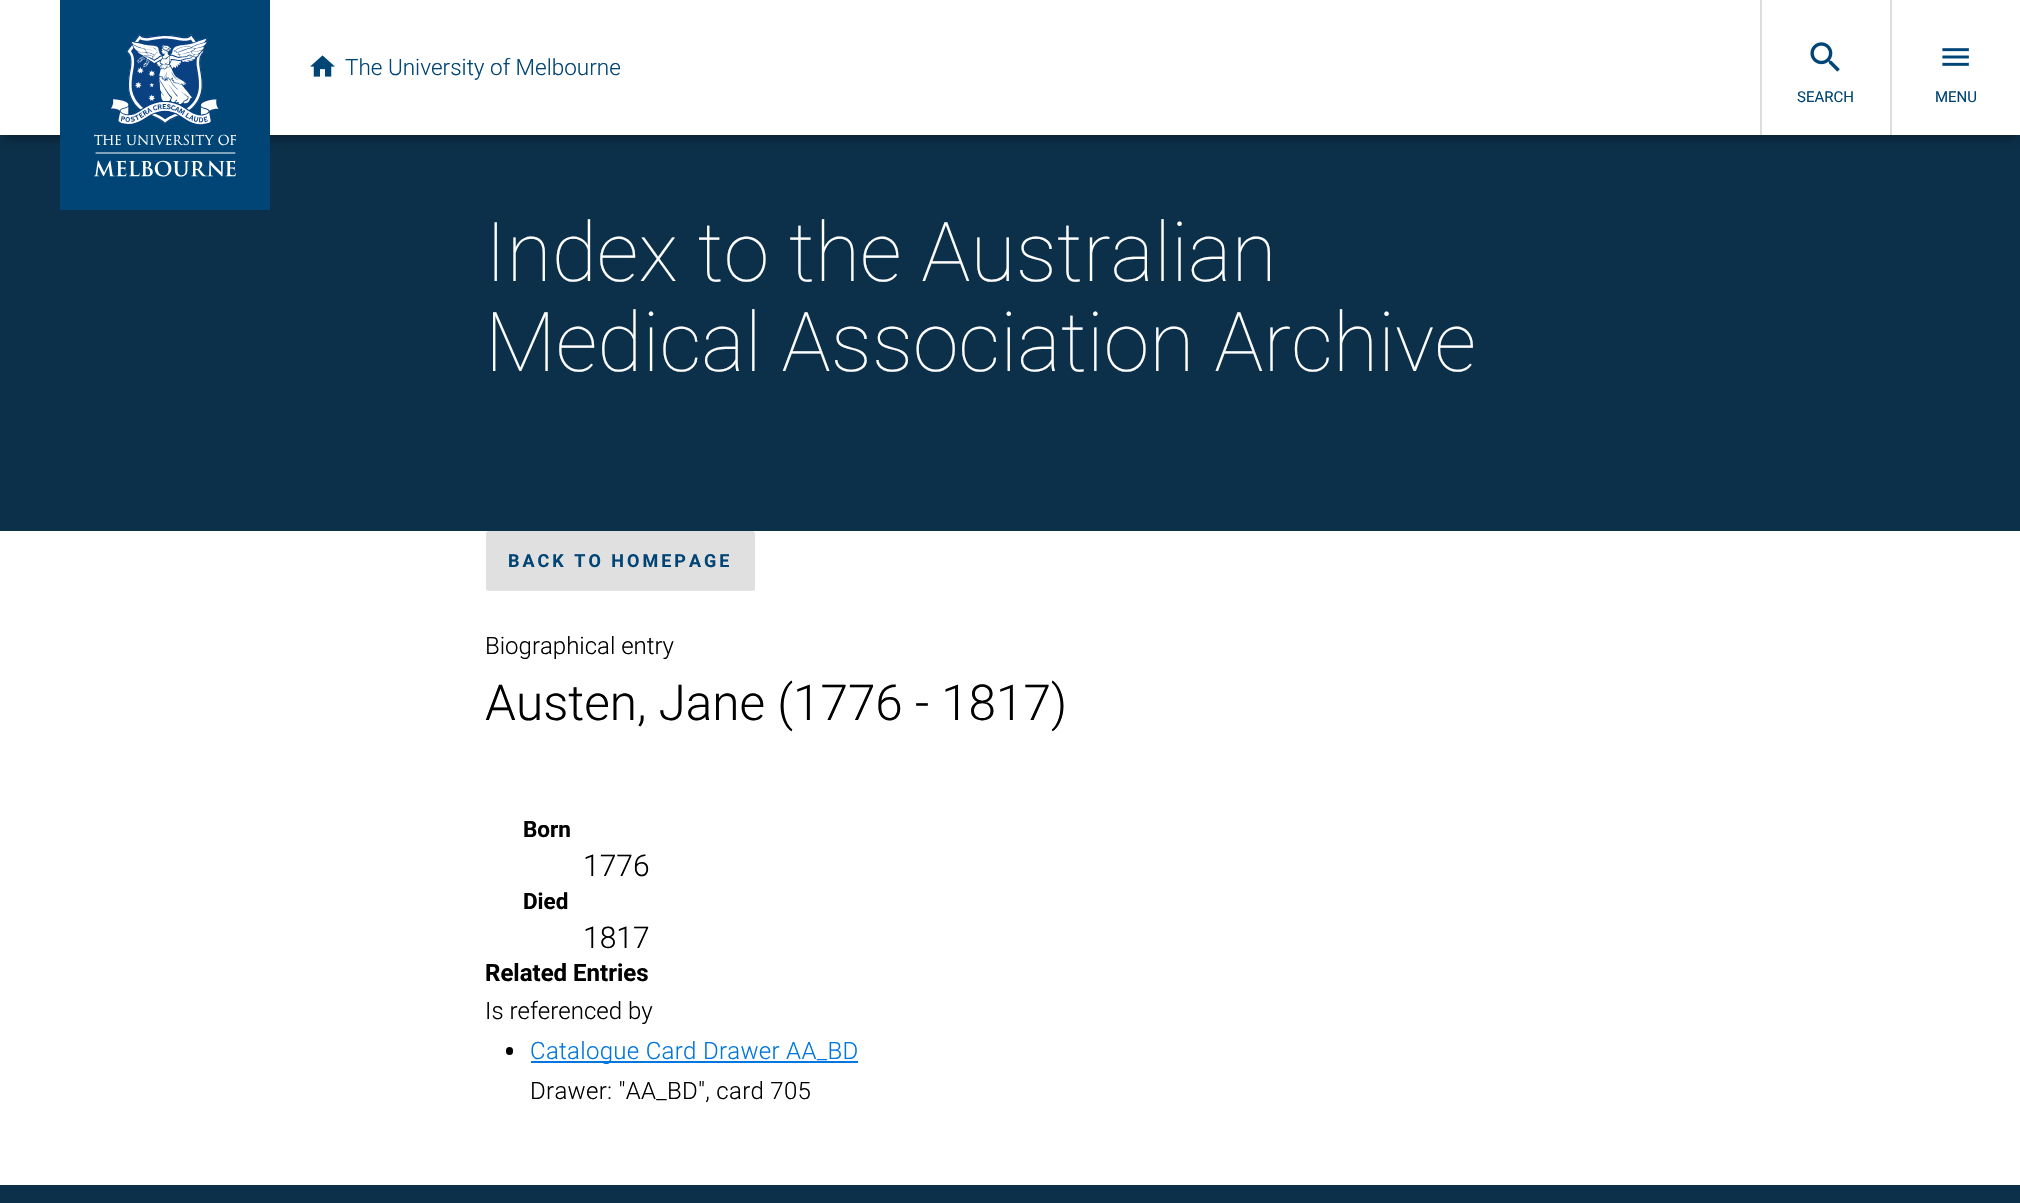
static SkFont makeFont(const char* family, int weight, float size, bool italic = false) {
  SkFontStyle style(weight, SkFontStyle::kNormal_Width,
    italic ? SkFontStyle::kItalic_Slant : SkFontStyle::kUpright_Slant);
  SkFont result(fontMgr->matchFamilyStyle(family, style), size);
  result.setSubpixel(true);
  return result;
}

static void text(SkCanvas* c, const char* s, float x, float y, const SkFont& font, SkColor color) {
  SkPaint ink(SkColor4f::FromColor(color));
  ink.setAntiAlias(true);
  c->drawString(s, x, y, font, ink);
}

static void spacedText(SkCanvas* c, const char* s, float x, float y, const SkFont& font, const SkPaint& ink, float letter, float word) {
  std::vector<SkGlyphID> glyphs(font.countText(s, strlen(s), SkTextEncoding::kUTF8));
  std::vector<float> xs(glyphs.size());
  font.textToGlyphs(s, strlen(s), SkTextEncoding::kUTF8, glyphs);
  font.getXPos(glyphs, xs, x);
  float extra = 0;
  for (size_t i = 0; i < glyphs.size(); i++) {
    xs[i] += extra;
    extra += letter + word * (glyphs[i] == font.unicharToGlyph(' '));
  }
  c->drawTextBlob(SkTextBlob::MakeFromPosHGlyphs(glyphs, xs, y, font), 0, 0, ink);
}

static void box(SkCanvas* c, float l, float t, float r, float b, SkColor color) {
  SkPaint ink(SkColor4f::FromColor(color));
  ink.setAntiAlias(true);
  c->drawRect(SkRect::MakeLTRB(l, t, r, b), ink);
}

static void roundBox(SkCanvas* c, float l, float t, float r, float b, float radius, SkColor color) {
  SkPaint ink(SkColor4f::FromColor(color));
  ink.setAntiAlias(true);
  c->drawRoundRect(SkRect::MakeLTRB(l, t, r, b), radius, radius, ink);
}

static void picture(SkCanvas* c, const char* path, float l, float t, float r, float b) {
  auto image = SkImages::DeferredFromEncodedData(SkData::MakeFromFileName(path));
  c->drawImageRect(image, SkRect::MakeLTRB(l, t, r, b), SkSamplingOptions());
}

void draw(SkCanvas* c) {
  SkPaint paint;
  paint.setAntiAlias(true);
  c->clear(0xffffffff);
  box(c, 0, 135, 2020, 531, 0xff0c304a);
  c->save();
  c->clipRect(SkRect::MakeLTRB(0, 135, 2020, 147));
  paint.setColor(0x4d000000);
  paint.setMaskFilter(SkMaskFilter::MakeBlur(kNormal_SkBlurStyle, 4.5f));
  c->drawRect(SkRect::MakeLTRB(5, 14, 2016, 140), paint);
  paint.setMaskFilter(nullptr);
  c->restore();
  box(c, 60, 0, 270, 210, 0xff004576);
  picture(c, "img_01.png", 94, 34, 236, 177);
  picture(c, "img_02.png", 310, 55, 335, 77);
  SkFont face1 = makeFont("Roboto", 300, 22.5f);
  text(c, "The University of Melbourne", 345, 75, face1, 0xff004576);
  box(c, 1760, 0, 1762, 135, 0xffdddddd);
  picture(c, "img_03.png", 1810, 42, 1840, 72);
  SkFont face2 = makeFont("Roboto", 400, 15);
  text(c, "SEARCH", 1797, 102, face2, 0xff004576);
  box(c, 1890, 0, 1892, 135, 0xffdddddd);
  picture(c, "img_04.png", 1942, 48, 1969, 66);
  text(c, "MENU", 1935, 102, face2, 0xff004576);
  SkFont face3 = makeFont("Roboto", 100, 82.5f);
  text(c, "Index to the Australian", 485, 281, face3, 0xffffffff);
  text(c, "Medical Association Archive", 485, 371, face3, 0xffffffff);
  roundBox(c, 486, 531, 755, 591, 3, 0xffe0e0e0);
  SkFont face4 = makeFont("Roboto", 700, 18);
  paint.setColor(0xff004576);
  spacedText(c, "BACK TO HOMEPAGE", 508, 567, face4, paint, 3, 0);
  SkFont face5 = makeFont("Roboto", 300, 24);
  text(c, "Biographical entry", 485, 654, face5, 0xff000000);
  SkFont face6 = makeFont("Roboto", 300, 49.5f);
  text(c, "Austen, Jane (1776 - 1817)", 485, 720, face6, 0xff000000);
  SkFont face7 = makeFont("Roboto", 700, 22.5f);
  text(c, "Born", 523, 837, face7, 0xff000000);
  SkFont face8 = makeFont("Roboto", 300, 30);
  text(c, "1776", 583, 876, face8, 0xff000000);
  text(c, "Died", 523, 909, face7, 0xff000000);
  text(c, "1817", 583, 948, face8, 0xff000000);
  SkFont face9 = makeFont("Roboto", 700, 24);
  text(c, "Related Entries", 485, 981, face9, 0xff000000);
  text(c, "Is referenced by", 485, 1019, face5, 0xff000000);
  roundBox(c, 506, 1047, 513, 1055, 3.5f, 0xff000000);
  box(c, 531, 1061, 858, 1063, 0xff0076de);
  paint.setColor(0xff0076de);
  spacedText(c, "Catalogue Card Drawer AA_BD", 530, 1059, face5, paint, 0.3f, 0);
  paint.setColor(0xff000000);
  spacedText(c, "Drawer: \"AA_BD\", card 705", 530, 1099, face5, paint, 0.3f, 0);
  box(c, 0, 1185, 2020, 1203, 0xff0c304a);
}
